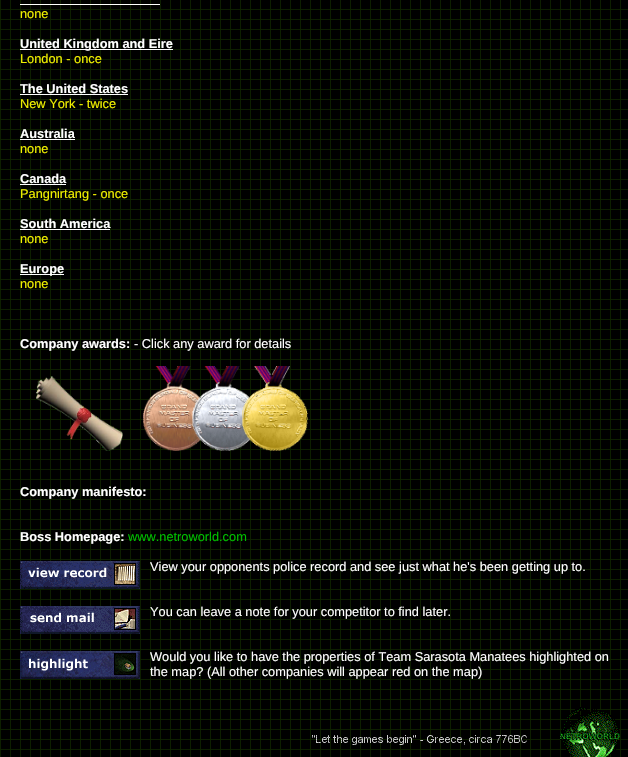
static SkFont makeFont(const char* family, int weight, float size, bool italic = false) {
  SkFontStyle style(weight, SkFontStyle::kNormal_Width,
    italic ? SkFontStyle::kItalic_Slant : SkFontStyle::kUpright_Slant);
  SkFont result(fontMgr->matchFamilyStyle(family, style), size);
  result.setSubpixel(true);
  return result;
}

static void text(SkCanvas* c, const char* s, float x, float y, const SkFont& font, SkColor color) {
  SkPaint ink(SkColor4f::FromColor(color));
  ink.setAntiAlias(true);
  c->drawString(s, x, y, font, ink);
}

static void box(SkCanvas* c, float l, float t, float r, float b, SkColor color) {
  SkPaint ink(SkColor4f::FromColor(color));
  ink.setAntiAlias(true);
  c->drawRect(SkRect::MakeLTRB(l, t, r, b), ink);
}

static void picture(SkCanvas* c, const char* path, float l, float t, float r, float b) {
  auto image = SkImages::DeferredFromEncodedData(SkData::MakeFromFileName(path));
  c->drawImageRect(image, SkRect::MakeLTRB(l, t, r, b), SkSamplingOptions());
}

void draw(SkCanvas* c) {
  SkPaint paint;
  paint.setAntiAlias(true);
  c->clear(0xffffffff);
  picture(c, "img_01.png", 0, 0, 628, 757);
  box(c, 20, 4, 160, 5, 0xffffffff);
  SkFont face1 = makeFont("Liberation Sans", 400, 12.8f);
  text(c, "none", 20, 18, face1, 0xfff0f000);
  box(c, 20, 49, 173, 50, 0xffffffff);
  SkFont face2 = makeFont("Liberation Sans", 700, 12.8f);
  text(c, "United Kingdom and Eire", 20, 48, face2, 0xffffffff);
  text(c, "London - once", 20, 63, face1, 0xfff0f000);
  text(c, "The United States", 20, 93, face2, 0xffffffff);
  box(c, 20, 94, 128, 95, 0xffffffff);
  text(c, "New York - twice", 20, 108, face1, 0xfff0f000);
  text(c, "Australia", 20, 138, face2, 0xffffffff);
  box(c, 20, 139, 75, 140, 0xffffffff);
  text(c, "none", 20, 153, face1, 0xfff0f000);
  text(c, "Canada", 20, 183, face2, 0xffffffff);
  box(c, 20, 184, 66, 185, 0xffffffff);
  text(c, "Pangnirtang - once", 20, 198, face1, 0xfff0f000);
  text(c, "South America", 20, 228, face2, 0xffffffff);
  box(c, 20, 229, 110, 230, 0xffffffff);
  text(c, "none", 20, 243, face1, 0xfff0f000);
  box(c, 20, 274, 64, 275, 0xffffffff);
  text(c, "Europe", 20, 273, face2, 0xffffffff);
  text(c, "none", 20, 288, face1, 0xfff0f000);
  text(c, "Company awards:", 20, 348, face2, 0xffffffff);
  text(c, "- Click any award for details", 134, 348, face1, 0xffffffff);
  picture(c, "img_02.png", 36, 376, 123, 451);
  picture(c, "img_03.png", 143, 366, 202, 451);
  picture(c, "img_04.png", 192, 366, 251, 451);
  picture(c, "img_05.png", 242, 366, 308, 451);
  text(c, "Company manifesto:", 20, 496, face2, 0xffffffff);
  text(c, "Boss Homepage:", 20, 541, face2, 0xffffffff);
  text(c, "www.netroworld.com", 128, 541, face1, 0xff00c000);
  picture(c, "img_06.png", 20, 561, 140, 589);
  text(c, "View your opponents police record and see just what he's been getting up to.", 150, 571, face1, 0xffffffff);
  picture(c, "img_07.png", 20, 606, 140, 634);
  text(c, "You can leave a note for your competitor to find later.", 150, 616, face1, 0xffffffff);
  picture(c, "img_08.png", 20, 651, 140, 679);
  text(c, "Would you like to have the properties of Team Sarasota Manatees highlighted on", 150, 661, face1, 0xffffffff);
  text(c, "the map? (All other companies will appear red on the map)", 150, 676, face1, 0xffffffff);
  picture(c, "img_09.png", 312, 707, 620, 757);
}
